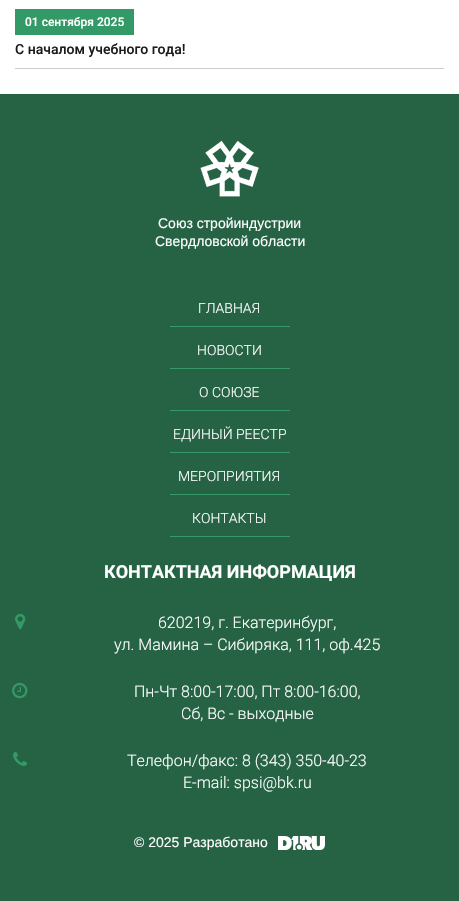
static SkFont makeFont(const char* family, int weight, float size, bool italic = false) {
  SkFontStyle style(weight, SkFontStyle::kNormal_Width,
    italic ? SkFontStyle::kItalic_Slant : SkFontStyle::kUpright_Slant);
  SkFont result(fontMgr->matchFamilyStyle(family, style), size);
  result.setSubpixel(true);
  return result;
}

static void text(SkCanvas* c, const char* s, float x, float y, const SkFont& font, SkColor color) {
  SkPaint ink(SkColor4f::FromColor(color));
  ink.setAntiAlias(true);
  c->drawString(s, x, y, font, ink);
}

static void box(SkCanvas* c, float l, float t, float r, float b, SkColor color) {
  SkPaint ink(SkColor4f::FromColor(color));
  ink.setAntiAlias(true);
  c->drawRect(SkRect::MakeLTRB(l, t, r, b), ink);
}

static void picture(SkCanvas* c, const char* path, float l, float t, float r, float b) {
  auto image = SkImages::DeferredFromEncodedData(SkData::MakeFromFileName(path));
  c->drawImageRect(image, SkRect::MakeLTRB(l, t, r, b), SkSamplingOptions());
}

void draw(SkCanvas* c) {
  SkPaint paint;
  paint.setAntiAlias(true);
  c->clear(0xffffffff);
  box(c, 15, 68, 444, 69, 0xffcccccc);
  box(c, 15, 9, 134, 35, 0xff339966);
  SkFont face1 = makeFont("Roboto", 500, 12);
  text(c, "01 сентября 2025", 25, 26, face1, 0xffffffff);
  SkFont face2 = makeFont("Roboto", 500, 14);
  text(c, "С началом учебного года!", 15, 54, face2, 0xff1b1b1b);
  box(c, 0, 94, 459, 901, 0xff266244);
  picture(c, "img_01.png", 200, 140, 259, 197);
  SkFont face3 = makeFont("Liberation Sans", 400, 14);
  text(c, "Союз стройиндустрии", 158, 228, face3, 0xffffffff);
  text(c, "Свердловской области", 155, 246, face3, 0xffffffff);
  box(c, 170, 326, 290, 327, 0xff339966);
  SkFont face4 = makeFont("Roboto", 300, 14);
  text(c, "ГЛАВНАЯ", 198, 313, face4, 0xffffffff);
  box(c, 170, 368, 290, 369, 0xff339966);
  text(c, "НОВОСТИ", 197, 355, face4, 0xffffffff);
  box(c, 170, 410, 290, 411, 0xff339966);
  text(c, "О СОЮЗЕ", 199, 397, face4, 0xffffffff);
  box(c, 170, 452, 290, 453, 0xff339966);
  text(c, "ЕДИНЫЙ РЕЕСТР", 173, 439, face4, 0xffffffff);
  box(c, 170, 494, 290, 495, 0xff339966);
  text(c, "МЕРОПРИЯТИЯ", 178, 481, face4, 0xffffffff);
  box(c, 170, 536, 290, 537, 0xff339966);
  text(c, "КОНТАКТЫ", 192, 523, face4, 0xffffffff);
  SkFont face5 = makeFont("Roboto", 700, 18);
  text(c, "КОНТАКТНАЯ ИНФОРМАЦИЯ", 104, 578, face5, 0xffffffff);
  picture(c, "img_02.png", 15, 613, 26, 630);
  SkFont face6 = makeFont("Roboto", 300, 16);
  text(c, "620219, г. Екатеринбург,", 158, 628, face6, 0xffffffff);
  text(c, "ул. Мамина – Сибиряка, 111, оф.425", 114, 650, face6, 0xffffffff);
  picture(c, "img_03.png", 12, 682, 28, 699);
  text(c, "Пн-Чт 8:00-17:00, Пт 8:00-16:00,", 134, 697, face6, 0xffffffff);
  text(c, "Сб, Вс - выходные", 181, 719, face6, 0xffffffff);
  picture(c, "img_04.png", 13, 751, 28, 766);
  text(c, "Телефон/факс: 8 (343) 350-40-23", 127, 766, face6, 0xffffffff);
  text(c, "E-mail: spsi@bk.ru", 183, 788, face6, 0xffffffff);
  text(c, "© 2025 Разработано", 134, 847, face3, 0xffffffff);
  picture(c, "img_05.png", 278, 836, 325, 850);
}
